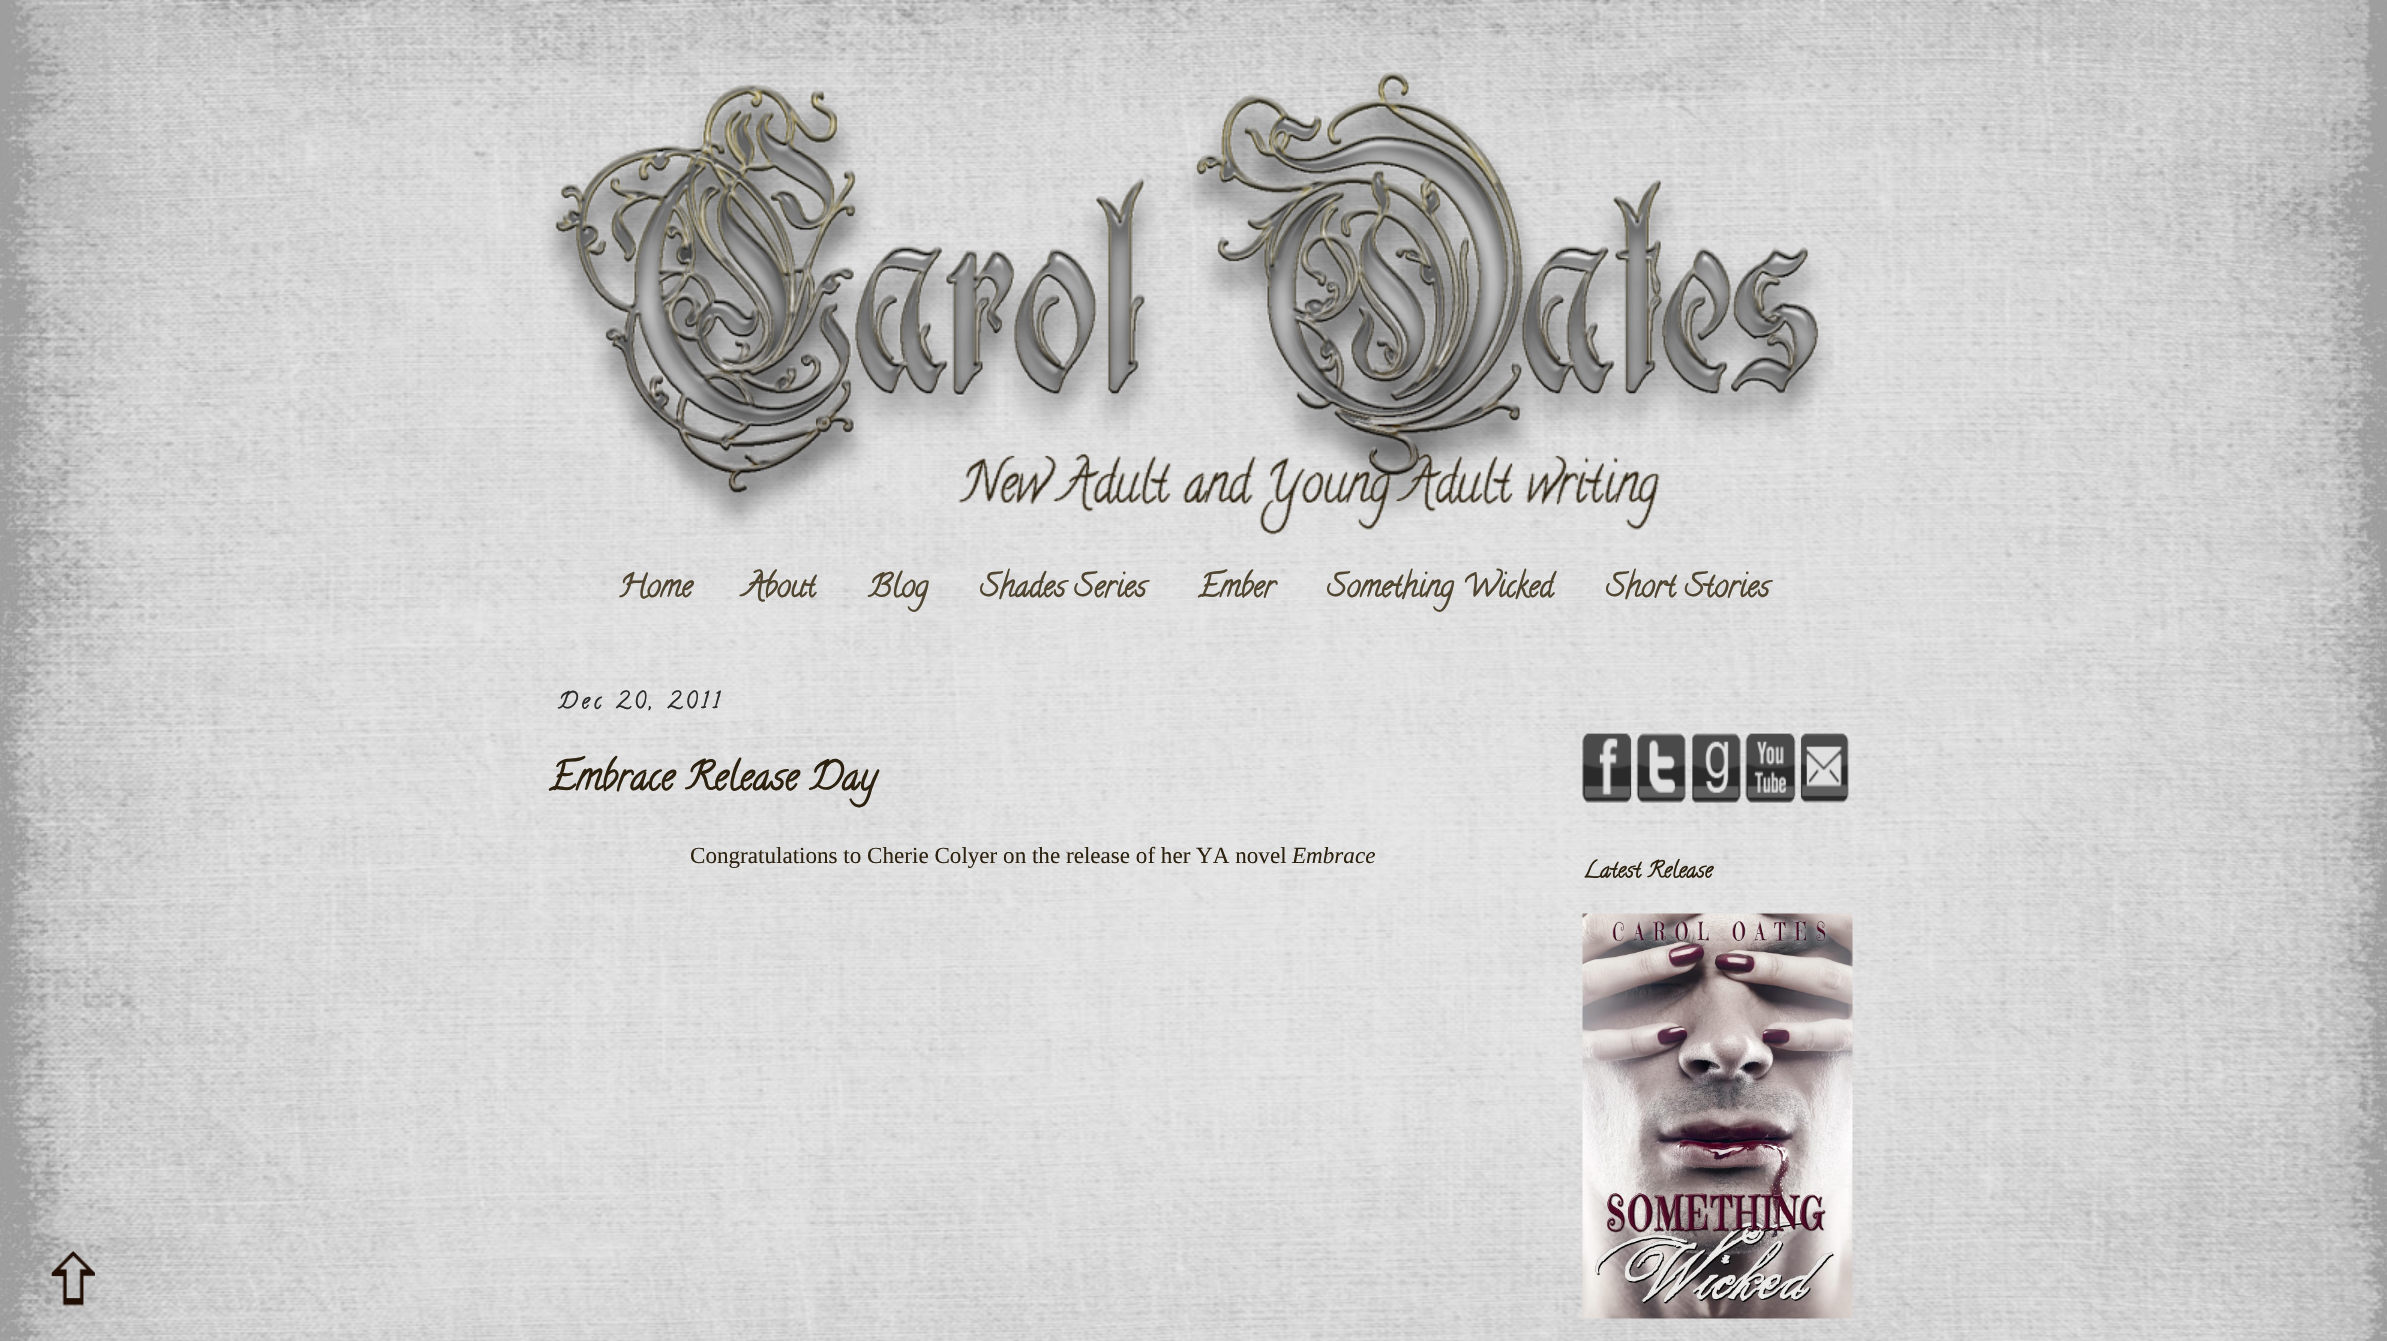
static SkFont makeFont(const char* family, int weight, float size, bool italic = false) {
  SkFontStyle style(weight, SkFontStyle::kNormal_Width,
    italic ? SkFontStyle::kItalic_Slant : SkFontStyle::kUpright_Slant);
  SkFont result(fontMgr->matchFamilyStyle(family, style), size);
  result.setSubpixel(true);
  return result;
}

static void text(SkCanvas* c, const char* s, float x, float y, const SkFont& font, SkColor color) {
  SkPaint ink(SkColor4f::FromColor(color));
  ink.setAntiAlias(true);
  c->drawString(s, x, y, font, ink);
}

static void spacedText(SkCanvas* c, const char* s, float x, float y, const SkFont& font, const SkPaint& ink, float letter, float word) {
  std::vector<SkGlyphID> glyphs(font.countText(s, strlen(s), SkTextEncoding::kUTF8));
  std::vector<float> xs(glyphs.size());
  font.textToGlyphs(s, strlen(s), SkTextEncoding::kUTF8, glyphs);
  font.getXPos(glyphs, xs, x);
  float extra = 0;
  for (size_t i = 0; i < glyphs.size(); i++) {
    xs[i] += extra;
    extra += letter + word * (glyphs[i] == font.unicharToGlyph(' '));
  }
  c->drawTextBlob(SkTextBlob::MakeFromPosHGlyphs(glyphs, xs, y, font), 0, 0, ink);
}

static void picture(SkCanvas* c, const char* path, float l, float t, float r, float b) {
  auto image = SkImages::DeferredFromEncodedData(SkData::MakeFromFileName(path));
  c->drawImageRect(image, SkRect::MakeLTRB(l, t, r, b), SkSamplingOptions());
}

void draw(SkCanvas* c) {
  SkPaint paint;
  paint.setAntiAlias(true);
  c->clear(0xffffffff);
  picture(c, "img_01.png", 0, 0, 2387, 1341);
  picture(c, "img_02.png", 26, 0, 2382, 600);
  picture(c, "img_03.png", 542, 72, 1834, 535);
  SkFont face1 = makeFont("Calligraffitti", 700, 31.5f);
  text(c, "Home", 618, 596, face1, 0xff504530);
  text(c, "About", 744, 596, face1, 0xff504530);
  text(c, "Blog", 868, 596, face1, 0xff504530);
  text(c, "Shades Series", 980, 596, face1, 0xff504530);
  text(c, "Ember", 1198, 596, face1, 0xff504530);
  text(c, "Something Wicked", 1327, 596, face1, 0xff504530);
  text(c, "Short Stories", 1606, 596, face1, 0xff504530);
  SkFont face2 = makeFont("Calligraffitti", 700, 22.5f);
  paint.setColor(0xff2c2b2b);
  spacedText(c, "Dec 20, 2011", 558, 708, face2, paint, 4.5f, 0);
  SkFont face3 = makeFont("Calligraffitti", 700, 39);
  text(c, "Embrace Release Day", 549, 789, face3, 0xff2d2210);
  SkFont face4 = makeFont("Liberation Serif", 400, 23.1f);
  text(c, "Congratulations to Cherie Colyer on the release of her YA novel", 690, 863, face4, 0xff2d2210);
  SkFont face5 = makeFont("Liberation Serif", 400, 23.1f, true);
  text(c, "Embrace", 1292, 863, face5, 0xff2d2210);
  picture(c, "img_04.png", 1582, 732, 1849, 803);
  text(c, "Latest Release", 1583, 877, face2, 0xff2d2210);
  picture(c, "img_05.png", 1582, 913, 1853, 1319);
  picture(c, "img_06.png", 50, 1250, 95, 1306);
}
